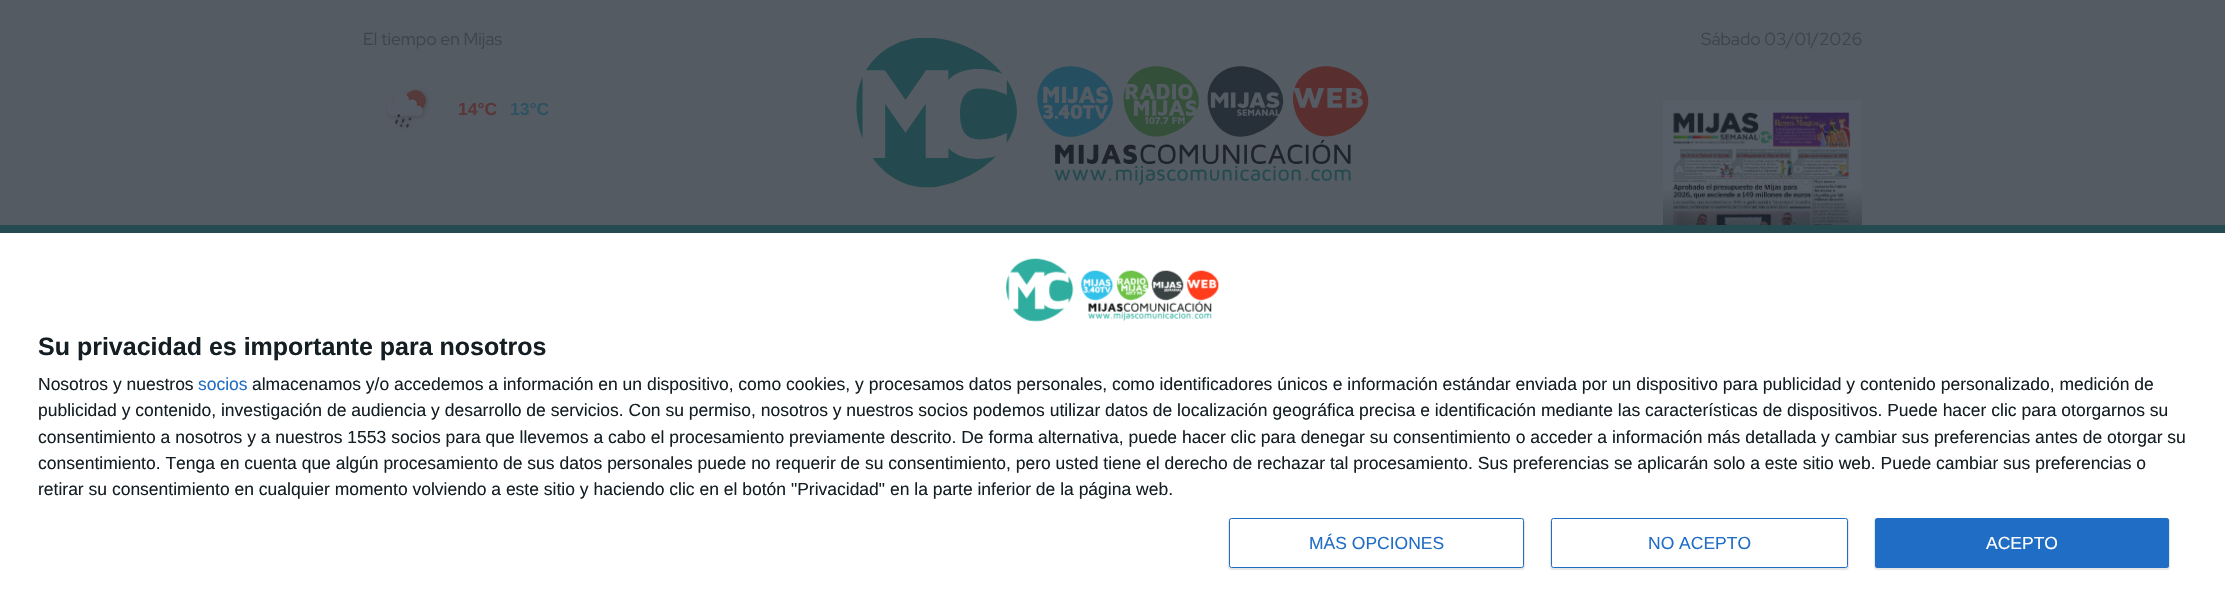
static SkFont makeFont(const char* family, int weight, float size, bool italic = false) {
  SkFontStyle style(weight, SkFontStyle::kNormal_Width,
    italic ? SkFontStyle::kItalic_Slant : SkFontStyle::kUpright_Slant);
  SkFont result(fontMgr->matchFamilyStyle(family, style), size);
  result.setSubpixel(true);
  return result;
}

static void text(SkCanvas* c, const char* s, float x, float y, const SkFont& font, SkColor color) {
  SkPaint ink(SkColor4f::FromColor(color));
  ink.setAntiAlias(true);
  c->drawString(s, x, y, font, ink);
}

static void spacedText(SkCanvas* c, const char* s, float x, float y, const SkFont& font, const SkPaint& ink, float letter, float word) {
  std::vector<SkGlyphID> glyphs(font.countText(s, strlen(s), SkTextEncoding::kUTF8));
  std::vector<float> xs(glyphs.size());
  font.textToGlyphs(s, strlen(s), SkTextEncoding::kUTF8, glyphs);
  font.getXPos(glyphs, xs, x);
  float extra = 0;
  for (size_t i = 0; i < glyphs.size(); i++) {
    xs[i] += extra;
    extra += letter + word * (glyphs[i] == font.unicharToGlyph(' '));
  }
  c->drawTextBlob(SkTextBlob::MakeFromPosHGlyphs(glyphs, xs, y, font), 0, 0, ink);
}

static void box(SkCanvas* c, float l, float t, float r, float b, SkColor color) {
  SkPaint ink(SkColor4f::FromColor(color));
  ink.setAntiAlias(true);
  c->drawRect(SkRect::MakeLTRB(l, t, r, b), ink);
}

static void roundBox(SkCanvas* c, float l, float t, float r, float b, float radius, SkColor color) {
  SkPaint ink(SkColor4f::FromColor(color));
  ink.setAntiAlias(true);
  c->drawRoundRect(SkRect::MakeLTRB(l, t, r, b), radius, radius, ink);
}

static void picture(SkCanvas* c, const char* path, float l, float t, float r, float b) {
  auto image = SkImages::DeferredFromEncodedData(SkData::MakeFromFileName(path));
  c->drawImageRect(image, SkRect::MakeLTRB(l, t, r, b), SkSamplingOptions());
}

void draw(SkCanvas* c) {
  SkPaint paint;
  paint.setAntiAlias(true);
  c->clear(0xff555b63);
  SkFont face1 = makeFont("Red Hat Display", 400, 17.5f);
  text(c, "El tiempo en Mijas", 363, 45, face1, 0xff3e444c);
  picture(c, "img_01.png", 385, 88, 430, 130);
  SkFont face2 = makeFont("Liberation Sans", 700, 17.5f);
  text(c, "14°C", 458, 115, face2, 0xff593638);
  text(c, "13°C", 510, 115, face2, 0xff2e5262);
  picture(c, "img_02.png", 856, 38, 1369, 188);
  text(c, "Sábado 03/01/2026", 1701, 45, face1, 0xff3e444c);
  picture(c, "img_03.png", 1663, 100, 1862, 225);
  SkFont face3 = makeFont("Red Hat Display", 400, 14);
  paint.setColor(0xff535860);
  spacedText(c, "ÚLTIMA EDICIÓN", 1703, 185, face3, paint, 0.6f, 0);
  box(c, 0, 225, 2225, 233, 0xff254a4f);
  box(c, 0, 233, 2225, 598, 0xffffffff);
  picture(c, "img_04.png", 1006, 258, 1219, 322);
  SkFont face4 = makeFont("Liberation Sans", 700, 25);
  text(c, "Su privacidad es importante para nosotros", 38, 355, face4, 0xff141e23);
  SkFont face5 = makeFont("Liberation Sans", 400, 17.5f);
  text(c, "Nosotros y nuestros", 38, 390, face5, 0xff141e23);
  text(c, "socios", 198, 390, face5, 0xff206dc5);
  text(c, "almacenamos y/o accedemos a información en un dispositivo, como cookies, y procesamos datos personales, como identificadores únicos e información estándar enviada por un dispositivo para publicidad y contenido personalizado, medición de", 252, 390, face5, 0xff141e23);
  text(c, "publicidad y contenido, investigación de audiencia y desarrollo de servicios. Con su permiso, nosotros y nuestros socios podemos utilizar datos de localización geográfica precisa e identificación mediante las características de dispositivos. Puede hacer clic para otorgarnos su", 38, 416, face5, 0xff141e23);
  text(c, "consentimiento a nosotros y a nuestros 1553 socios para que llevemos a cabo el procesamiento previamente descrito. De forma alternativa, puede hacer clic para denegar su consentimiento o acceder a información más detallada y cambiar sus preferencias antes de otorgar su", 38, 443, face5, 0xff141e23);
  text(c, "consentimiento. Tenga en cuenta que algún procesamiento de sus datos personales puede no requerir de su consentimiento, pero usted tiene el derecho de rechazar tal procesamiento. Sus preferencias se aplicarán solo a este sitio web. Puede cambiar sus preferencias o", 38, 469, face5, 0xff141e23);
  text(c, "retirar su consentimiento en cualquier momento volviendo a este sitio y haciendo clic en el botón \"Privacidad\" en la parte inferior de la página web.", 38, 495, face5, 0xff141e23);
  paint.setColor(0x1a000000);
  paint.setMaskFilter(SkMaskFilter::MakeBlur(kNormal_SkBlurStyle, 0.5f));
  c->drawRoundRect(SkRect::MakeLTRB(1228, 518, 1525, 570), 4, 4, paint);
  paint.setMaskFilter(nullptr);
  paint.setColor(0xffffffff);
  c->drawRoundRect(SkRect::MakeLTRB(1229.5f, 518.5f, 1523.5f, 567.5f), 2, 2, paint);
  paint.setStyle(SkPaint::kStroke_Style);
  paint.setStrokeWidth(1);
  paint.setColor(0xff206dc5);
  c->drawRoundRect(SkRect::MakeLTRB(1229.5f, 518.5f, 1523.5f, 567.5f), 2, 2, paint);
  text(c, "MÁS OPCIONES", 1309, 549, face5, 0xff206dc5);
  paint.setStyle(SkPaint::kFill_Style);
  paint.setColor(0x1a000000);
  paint.setMaskFilter(SkMaskFilter::MakeBlur(kNormal_SkBlurStyle, 0.5f));
  c->drawRoundRect(SkRect::MakeLTRB(1550, 518, 1849, 570), 4, 4, paint);
  paint.setMaskFilter(nullptr);
  paint.setColor(0xffffffff);
  c->drawRoundRect(SkRect::MakeLTRB(1551.5f, 518.5f, 1847.5f, 567.5f), 2, 2, paint);
  paint.setStyle(SkPaint::kStroke_Style);
  paint.setColor(0xff206dc5);
  c->drawRoundRect(SkRect::MakeLTRB(1551.5f, 518.5f, 1847.5f, 567.5f), 2, 2, paint);
  text(c, "NO ACEPTO", 1648, 549, face5, 0xff206dc5);
  paint.setStyle(SkPaint::kFill_Style);
  paint.setColor(0x1a000000);
  paint.setMaskFilter(SkMaskFilter::MakeBlur(kNormal_SkBlurStyle, 0.5f));
  c->drawRoundRect(SkRect::MakeLTRB(1874, 518, 2170, 570), 4, 4, paint);
  paint.setMaskFilter(nullptr);
  roundBox(c, 1875, 518, 2169, 568, 2.5f, 0xff206dc5);
  text(c, "ACEPTO", 1986, 549, face5, 0xffffffff);
}
